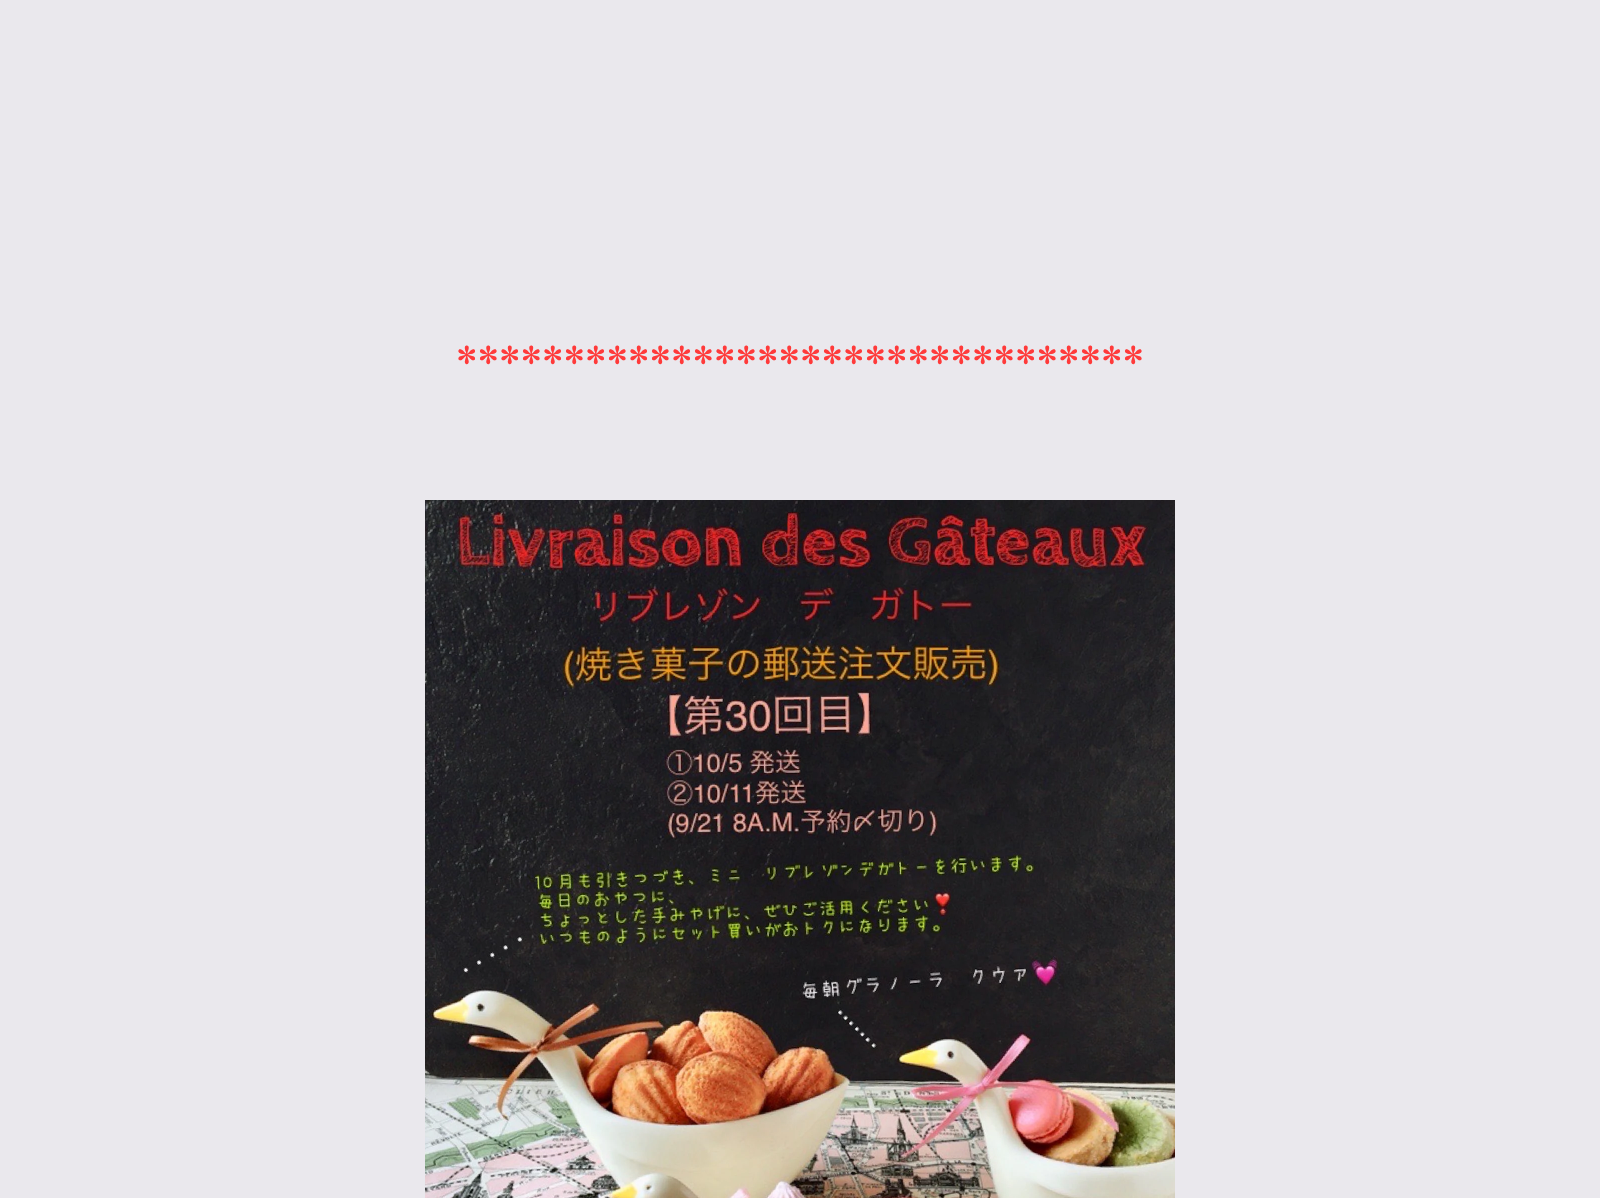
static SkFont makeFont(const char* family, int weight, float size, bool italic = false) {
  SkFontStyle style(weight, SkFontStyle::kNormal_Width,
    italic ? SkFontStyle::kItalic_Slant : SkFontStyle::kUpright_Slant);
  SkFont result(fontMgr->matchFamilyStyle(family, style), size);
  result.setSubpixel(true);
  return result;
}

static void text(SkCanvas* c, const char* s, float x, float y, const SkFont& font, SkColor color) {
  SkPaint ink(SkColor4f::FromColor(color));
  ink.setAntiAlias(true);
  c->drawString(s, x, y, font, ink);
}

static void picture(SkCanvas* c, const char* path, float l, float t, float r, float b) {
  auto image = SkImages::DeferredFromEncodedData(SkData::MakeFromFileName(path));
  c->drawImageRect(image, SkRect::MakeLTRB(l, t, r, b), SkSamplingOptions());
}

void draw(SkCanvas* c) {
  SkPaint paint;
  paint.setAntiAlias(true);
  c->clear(0xffeae8ed);
  SkFont face1 = makeFont("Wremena", 400, 48);
  text(c, "********************************", 456, 386, face1, 0xffff3a3a);
  picture(c, "img_01.png", 425, 500, 1175, 1198);
}
